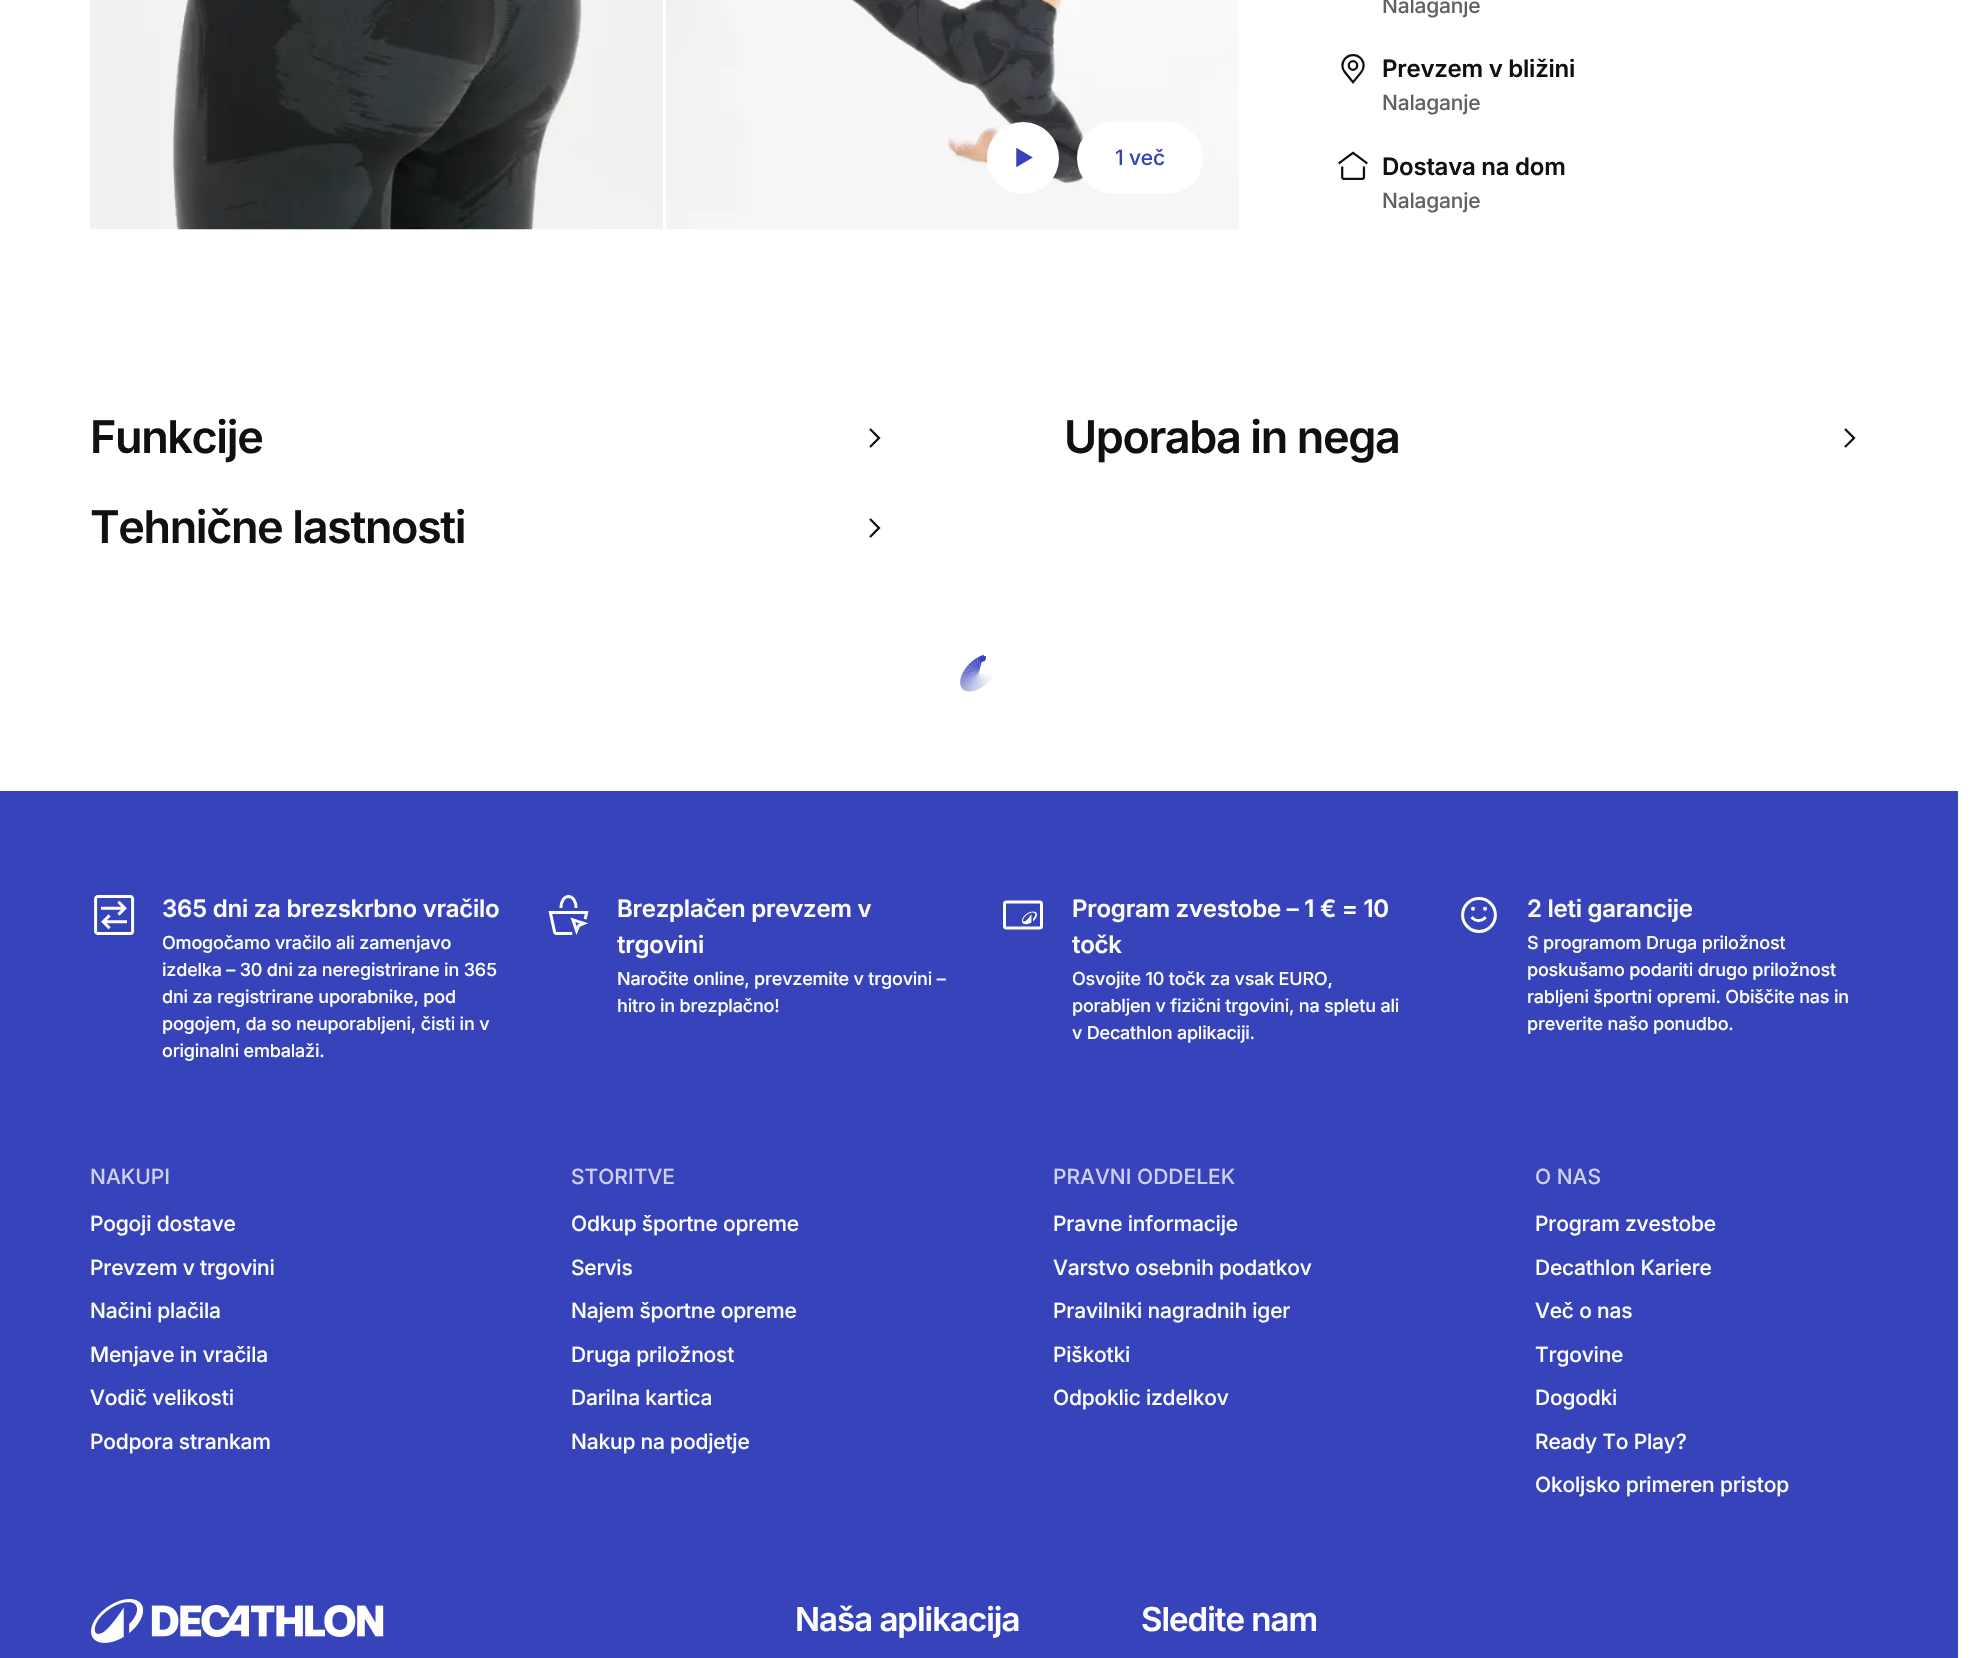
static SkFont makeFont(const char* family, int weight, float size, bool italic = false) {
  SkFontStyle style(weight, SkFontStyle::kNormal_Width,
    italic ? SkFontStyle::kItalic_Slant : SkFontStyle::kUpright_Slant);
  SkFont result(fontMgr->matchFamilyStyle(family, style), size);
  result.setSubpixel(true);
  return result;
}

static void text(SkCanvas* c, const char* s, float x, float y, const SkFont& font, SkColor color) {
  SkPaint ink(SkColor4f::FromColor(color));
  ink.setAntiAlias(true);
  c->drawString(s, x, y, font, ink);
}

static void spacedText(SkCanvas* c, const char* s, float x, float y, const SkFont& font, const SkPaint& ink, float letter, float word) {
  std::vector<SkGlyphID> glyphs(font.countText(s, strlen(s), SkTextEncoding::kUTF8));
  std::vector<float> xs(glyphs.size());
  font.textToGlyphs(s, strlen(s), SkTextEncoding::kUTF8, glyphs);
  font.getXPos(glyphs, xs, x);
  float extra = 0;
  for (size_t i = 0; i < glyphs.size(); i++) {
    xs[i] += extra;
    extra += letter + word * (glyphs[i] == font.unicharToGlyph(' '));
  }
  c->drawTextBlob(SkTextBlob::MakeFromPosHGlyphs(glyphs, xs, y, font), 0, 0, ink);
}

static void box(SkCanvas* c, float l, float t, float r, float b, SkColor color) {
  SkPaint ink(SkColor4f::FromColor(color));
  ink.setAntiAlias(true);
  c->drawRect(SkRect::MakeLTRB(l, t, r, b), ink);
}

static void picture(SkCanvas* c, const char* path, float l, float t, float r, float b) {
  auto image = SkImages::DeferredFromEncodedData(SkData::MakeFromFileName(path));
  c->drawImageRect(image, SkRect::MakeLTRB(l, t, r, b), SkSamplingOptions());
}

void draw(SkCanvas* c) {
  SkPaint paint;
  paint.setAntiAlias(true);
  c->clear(0xffffffff);
  picture(c, "img_01.png", 90, 0, 663, 230);
  picture(c, "img_02.png", 666, 0, 1239, 229);
  paint.setColor(0xffffffff);
  c->drawCircle(1023, 158, 35, paint);
  paint.setStyle(SkPaint::kStroke_Style);
  paint.setStrokeWidth(2);
  c->drawCircle(1023, 158, 35, paint);
  picture(c, "img_03.png", 1016, 147, 1033, 168);
  paint.setStyle(SkPaint::kFill_Style);
  c->drawRoundRect(SkRect::MakeLTRB(1078, 123, 1202, 193), 35, 35, paint);
  paint.setStyle(SkPaint::kStroke_Style);
  c->drawRoundRect(SkRect::MakeLTRB(1078, 123, 1202, 193), 35, 35, paint);
  SkFont face1 = makeFont("Inter", 500, 21);
  paint.setStyle(SkPaint::kFill_Style);
  paint.setColor(0xff3643ba);
  spacedText(c, "1 več", 1115, 165, face1, paint, -0.2f, 0);
  paint.setColor(0xff616161);
  spacedText(c, "Nalaganje", 1382, 13, face1, paint, -0.2f, 0);
  picture(c, "img_04.png", 1341, 54, 1365, 84);
  SkFont face2 = makeFont("Inter", 600, 24);
  paint.setColor(0xff101010);
  spacedText(c, "Prevzem v bližini", 1382, 77, face2, paint, -0.25f, 0);
  paint.setColor(0xff616161);
  spacedText(c, "Nalaganje", 1382, 110, face1, paint, -0.2f, 0);
  picture(c, "img_05.png", 1338, 151, 1368, 180);
  paint.setColor(0xff101010);
  spacedText(c, "Dostava na dom", 1382, 175, face2, paint, -0.25f, 0);
  paint.setColor(0xff616161);
  spacedText(c, "Nalaganje", 1382, 208, face1, paint, -0.2f, 0);
  SkFont face3 = makeFont("Inter", 600, 45);
  paint.setColor(0xff101010);
  spacedText(c, "Funkcije", 90, 453, face3, paint, -1.4f, 0);
  picture(c, "img_06.png", 869, 428, 881, 448);
  spacedText(c, "Uporaba in nega", 1064, 453, face3, paint, -1.4f, 0);
  picture(c, "img_06.png", 1844, 428, 1856, 448);
  spacedText(c, "Tehnične lastnosti", 90, 543, face3, paint, -1.4f, 0);
  picture(c, "img_07.png", 869, 518, 881, 538);
  picture(c, "img_08.png", 960, 655, 992, 692);
  {
    const SkColor colors[] = {0xff3643ba, 0x003643ba};
    const float stops[] = {0.94f, 1};
    paint.setShader(SkGradientShader::MakeRadial({983, 659}, 3.7f, colors, stops, 2, SkTileMode::kClamp));
    paint.setAlpha(255);
  }
  c->drawPath(SkPathBuilder().moveTo(987, 654.5f).lineTo(985, 661).lineTo(978, 663).lineTo(980, 656).cubicTo(982, 655, 984.5f, 654.5f, 987, 654.5f).close().detach(), paint);
  box(c, 0, 791, 1958, 1658, 0xff3643ba);
  picture(c, "img_09.png", 94, 895, 135, 935);
  paint.setShader(nullptr);
  paint.setColor(0xffffffff);
  spacedText(c, "365 dni za brezskrbno vračilo", 162, 917, face2, paint, -0.25f, 0);
  SkFont face4 = makeFont("Inter", 500, 18);
  spacedText(c, "Omogočamo vračilo ali zamenjavo", 162, 949, face4, paint, -0.2f, 0);
  spacedText(c, "izdelka – 30 dni za neregistrirane in 365", 162, 976, face4, paint, -0.2f, 0);
  spacedText(c, "dni za registrirane uporabnike, pod", 162, 1003, face4, paint, -0.2f, 0);
  spacedText(c, "pogojem, da so neuporabljeni, čisti in v", 162, 1030, face4, paint, -0.2f, 0);
  spacedText(c, "originalni embalaži.", 162, 1057, face4, paint, -0.2f, 0);
  picture(c, "img_10.png", 548, 895, 589, 935);
  spacedText(c, "Brezplačen prevzem v", 617, 917, face2, paint, -0.25f, 0);
  spacedText(c, "trgovini", 617, 953, face2, paint, -0.25f, 0);
  spacedText(c, "Naročite online, prevzemite v trgovini –", 617, 985, face4, paint, -0.2f, 0);
  spacedText(c, "hitro in brezplačno!", 617, 1012, face4, paint, -0.2f, 0);
  picture(c, "img_11.png", 1003, 900, 1043, 930);
  spacedText(c, "Program zvestobe – 1 € = 10", 1072, 917, face2, paint, -0.25f, 0);
  spacedText(c, "točk", 1072, 953, face2, paint, -0.25f, 0);
  spacedText(c, "Osvojite 10 točk za vsak EURO,", 1072, 985, face4, paint, -0.2f, 0);
  spacedText(c, "porabljen v fizični trgovini, na spletu ali", 1072, 1012, face4, paint, -0.2f, 0);
  spacedText(c, "v Decathlon aplikaciji.", 1072, 1039, face4, paint, -0.2f, 0);
  picture(c, "img_12.png", 1461, 897, 1497, 933);
  spacedText(c, "2 leti garancije", 1527, 917, face2, paint, -0.25f, 0);
  spacedText(c, "S programom Druga priložnost", 1527, 949, face4, paint, -0.2f, 0);
  spacedText(c, "poskušamo podariti drugo priložnost", 1527, 976, face4, paint, -0.2f, 0);
  spacedText(c, "rabljeni športni opremi. Obiščite nas in", 1527, 1003, face4, paint, -0.2f, 0);
  spacedText(c, "preverite našo ponudbo.", 1527, 1030, face4, paint, -0.2f, 0);
  text(c, "NAKUPI", 90, 1184, face1, 0xffcdd0ee);
  spacedText(c, "Pogoji dostave", 90, 1231, face1, paint, -0.2f, 0);
  spacedText(c, "Prevzem v trgovini", 90, 1275, face1, paint, -0.2f, 0);
  spacedText(c, "Načini plačila", 90, 1318, face1, paint, -0.2f, 0);
  spacedText(c, "Menjave in vračila", 90, 1362, face1, paint, -0.2f, 0);
  spacedText(c, "Vodič velikosti", 90, 1405, face1, paint, -0.2f, 0);
  spacedText(c, "Podpora strankam", 90, 1449, face1, paint, -0.2f, 0);
  text(c, "STORITVE", 571, 1184, face1, 0xffcdd0ee);
  spacedText(c, "Odkup športne opreme", 571, 1231, face1, paint, -0.2f, 0);
  spacedText(c, "Servis", 571, 1275, face1, paint, -0.2f, 0);
  spacedText(c, "Najem športne opreme", 571, 1318, face1, paint, -0.2f, 0);
  spacedText(c, "Druga priložnost", 571, 1362, face1, paint, -0.2f, 0);
  spacedText(c, "Darilna kartica", 571, 1405, face1, paint, -0.2f, 0);
  spacedText(c, "Nakup na podjetje", 571, 1449, face1, paint, -0.2f, 0);
  text(c, "PRAVNI ODDELEK", 1053, 1184, face1, 0xffcdd0ee);
  spacedText(c, "Pravne informacije", 1053, 1231, face1, paint, -0.2f, 0);
  spacedText(c, "Varstvo osebnih podatkov", 1053, 1275, face1, paint, -0.2f, 0);
  spacedText(c, "Pravilniki nagradnih iger", 1053, 1318, face1, paint, -0.2f, 0);
  spacedText(c, "Piškotki", 1053, 1362, face1, paint, -0.2f, 0);
  spacedText(c, "Odpoklic izdelkov", 1053, 1405, face1, paint, -0.2f, 0);
  text(c, "O NAS", 1535, 1184, face1, 0xffcdd0ee);
  spacedText(c, "Program zvestobe", 1535, 1231, face1, paint, -0.2f, 0);
  spacedText(c, "Decathlon Kariere", 1535, 1275, face1, paint, -0.2f, 0);
  spacedText(c, "Več o nas", 1535, 1318, face1, paint, -0.2f, 0);
  spacedText(c, "Trgovine", 1535, 1362, face1, paint, -0.2f, 0);
  spacedText(c, "Dogodki", 1535, 1405, face1, paint, -0.2f, 0);
  spacedText(c, "Ready To Play?", 1535, 1449, face1, paint, -0.2f, 0);
  spacedText(c, "Okoljsko primeren pristop", 1535, 1492, face1, paint, -0.2f, 0);
  picture(c, "img_13.png", 91, 1599, 384, 1643);
  SkFont face5 = makeFont("Inter", 600, 33);
  spacedText(c, "Naša aplikacija", 795, 1631, face5, paint, -1, 0);
  spacedText(c, "Sledite nam", 1141, 1631, face5, paint, -1, 0);
}
